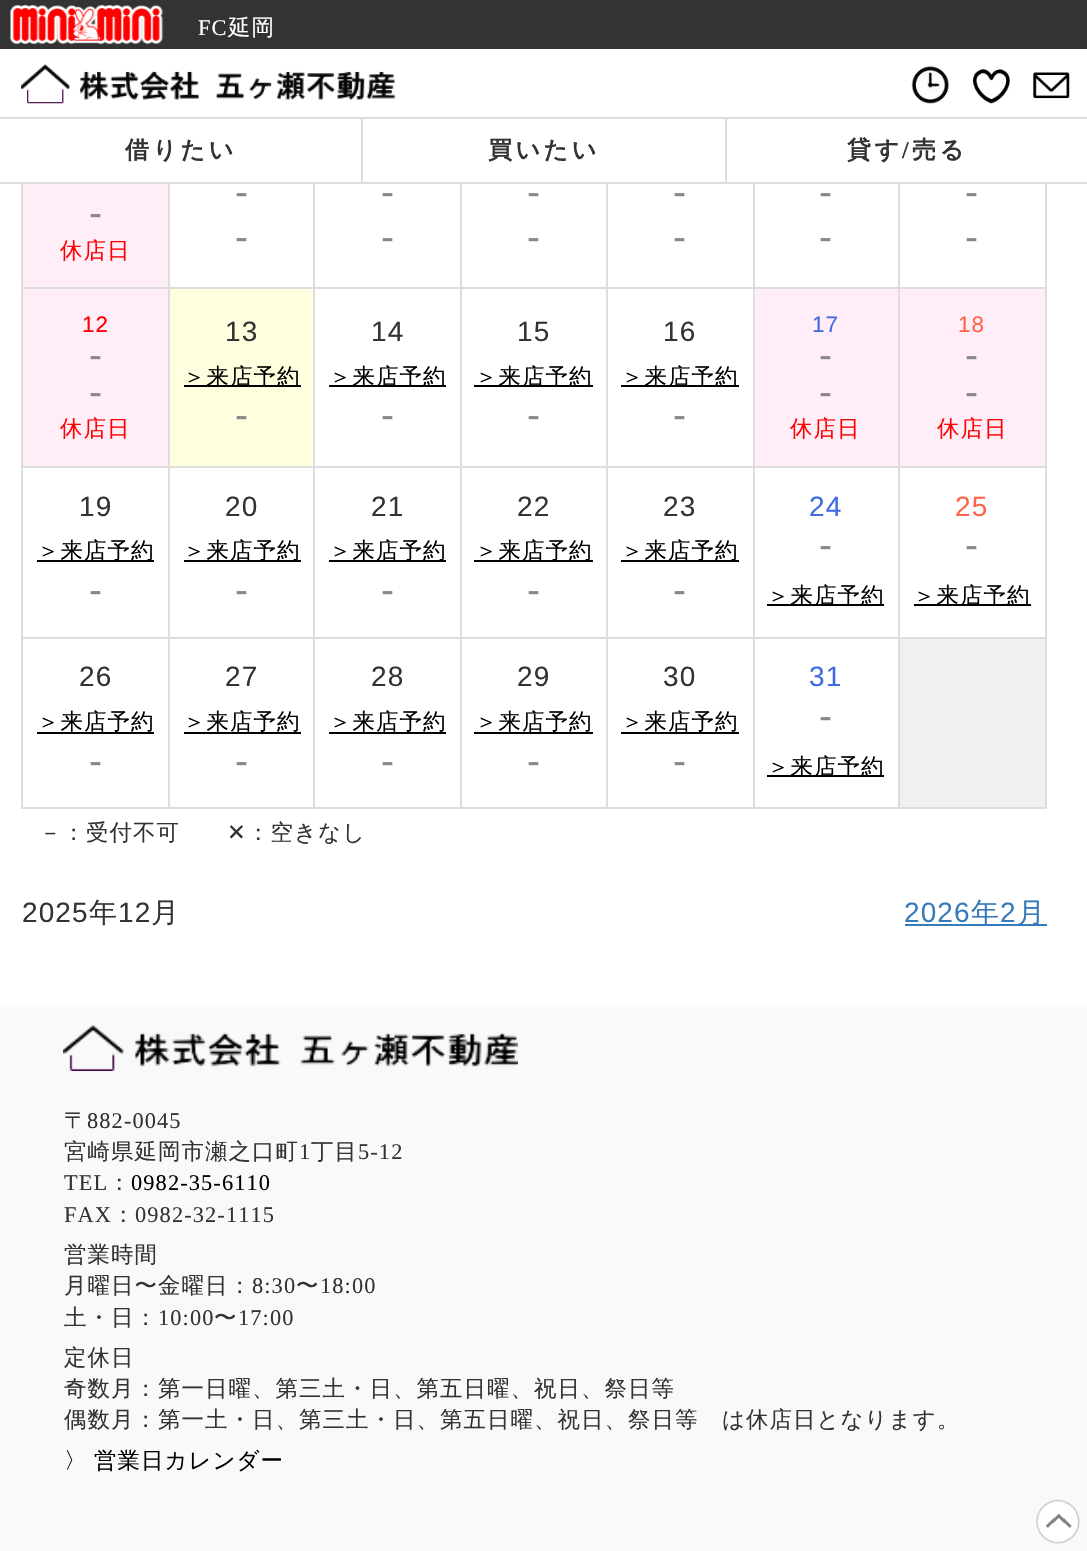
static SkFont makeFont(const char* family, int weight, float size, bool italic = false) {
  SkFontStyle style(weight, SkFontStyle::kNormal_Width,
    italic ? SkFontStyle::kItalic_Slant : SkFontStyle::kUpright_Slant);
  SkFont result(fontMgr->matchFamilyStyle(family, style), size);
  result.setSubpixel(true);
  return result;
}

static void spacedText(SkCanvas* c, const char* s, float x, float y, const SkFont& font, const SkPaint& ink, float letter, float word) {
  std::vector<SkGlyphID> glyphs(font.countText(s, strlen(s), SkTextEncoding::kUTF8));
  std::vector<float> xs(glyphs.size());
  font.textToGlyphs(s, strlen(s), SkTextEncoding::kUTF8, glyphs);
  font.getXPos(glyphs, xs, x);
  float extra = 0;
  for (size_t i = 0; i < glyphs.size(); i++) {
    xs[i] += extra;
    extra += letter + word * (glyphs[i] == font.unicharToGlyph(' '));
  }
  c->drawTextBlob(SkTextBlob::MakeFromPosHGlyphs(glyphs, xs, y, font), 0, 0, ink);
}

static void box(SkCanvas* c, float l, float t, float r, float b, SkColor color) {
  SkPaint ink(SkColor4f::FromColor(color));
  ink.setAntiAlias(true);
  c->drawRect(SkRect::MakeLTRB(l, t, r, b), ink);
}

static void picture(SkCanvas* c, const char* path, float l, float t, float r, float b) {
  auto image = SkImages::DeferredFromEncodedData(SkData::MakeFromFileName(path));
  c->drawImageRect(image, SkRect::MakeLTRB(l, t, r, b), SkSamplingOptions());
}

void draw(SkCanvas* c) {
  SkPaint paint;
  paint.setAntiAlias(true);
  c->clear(0xffffffff);
  box(c, 0, 0, 1087, 49, 0xff333333);
  picture(c, "img_01.png", 10, 5, 164, 44);
  SkFont face1 = makeFont("Liberation Serif", 400, 22.4f);
  paint.setColor(0xffffffff);
  spacedText(c, "FC", 198, 35, face1, paint, 1.1f, 0);
  SkFont face2 = makeFont("WenQuanYi Zen Hei", 500, 22.4f);
  spacedText(c, "延岡", 228, 35, face2, paint, 1.1f, 0);
  picture(c, "img_02.png", 21, 64, 396, 104);
  picture(c, "img_03.png", 911, 66, 949, 104);
  picture(c, "img_04.png", 973, 69, 1010, 104);
  picture(c, "img_05.png", 1033, 72, 1070, 99);
  box(c, 0, 117, 1087, 119, 0xffdddddd);
  box(c, 0, 182, 1087, 184, 0xffdddddd);
  box(c, 361, 119, 363, 182, 0xffdddddd);
  SkFont face3 = makeFont("WenQuanYi Zen Hei", 700, 24);
  paint.setColor(0xff333333);
  spacedText(c, "借りたい", 125, 158, face3, paint, 3.5f, 0);
  box(c, 725, 119, 727, 182, 0xffdddddd);
  spacedText(c, "買いたい", 488, 158, face3, paint, 3.5f, 0);
  spacedText(c, "貸す", 847, 158, face3, paint, 3.5f, 0);
  SkFont face4 = makeFont("Liberation Serif", 700, 24);
  spacedText(c, "/", 902, 158, face4, paint, 3.5f, 0);
  spacedText(c, "売る", 912, 158, face3, paint, 3.5f, 0);
  box(c, 23, 184, 168, 287, 0xffffeef7);
  SkFont face5 = makeFont("Liberation Sans", 400, 39);
  paint.setColor(0xff888888);
  spacedText(c, "-", 89, 226, face5, paint, 1.1f, 0);
  paint.setColor(0xffff0000);
  spacedText(c, "休店日", 60, 258, face2, paint, 1.1f, 0);
  box(c, 898, 287, 1047, 289, 0xffdddddd);
  box(c, 898, 466, 1047, 468, 0xffdddddd);
  box(c, 898, 637, 1047, 639, 0xffdddddd);
  box(c, 1045, 637, 1047, 809, 0xffdddddd);
  box(c, 898, 807, 1047, 809, 0xffdddddd);
  box(c, 898, 637, 900, 809, 0xffdddddd);
  box(c, 753, 637, 900, 639, 0xffdddddd);
  box(c, 898, 466, 900, 639, 0xffdddddd);
  box(c, 753, 466, 900, 468, 0xffdddddd);
  box(c, 898, 287, 900, 467, 0xffdddddd);
  box(c, 753, 287, 900, 289, 0xffdddddd);
  box(c, 753, 807, 900, 809, 0xffdddddd);
  box(c, 753, 637, 755, 809, 0xffdddddd);
  box(c, 606, 637, 754, 639, 0xffdddddd);
  box(c, 753, 466, 755, 639, 0xffdddddd);
  box(c, 606, 466, 754, 468, 0xffdddddd);
  box(c, 753, 287, 755, 467, 0xffdddddd);
  box(c, 606, 287, 754, 289, 0xffdddddd);
  box(c, 606, 807, 754, 809, 0xffdddddd);
  box(c, 606, 637, 608, 809, 0xffdddddd);
  box(c, 460, 637, 607, 639, 0xffdddddd);
  box(c, 606, 466, 608, 639, 0xffdddddd);
  box(c, 460, 466, 607, 468, 0xffdddddd);
  box(c, 606, 287, 608, 467, 0xffdddddd);
  box(c, 460, 287, 607, 289, 0xffdddddd);
  box(c, 460, 807, 607, 809, 0xffdddddd);
  box(c, 460, 637, 462, 809, 0xffdddddd);
  box(c, 313, 637, 462, 639, 0xffdddddd);
  box(c, 460, 466, 462, 639, 0xffdddddd);
  box(c, 313, 466, 462, 468, 0xffdddddd);
  box(c, 460, 287, 462, 467, 0xffdddddd);
  box(c, 313, 287, 462, 289, 0xffdddddd);
  box(c, 313, 807, 462, 809, 0xffdddddd);
  box(c, 313, 637, 315, 809, 0xffdddddd);
  box(c, 168, 637, 315, 639, 0xffdddddd);
  box(c, 313, 466, 315, 639, 0xffdddddd);
  box(c, 168, 466, 315, 468, 0xffdddddd);
  box(c, 313, 287, 315, 467, 0xffdddddd);
  box(c, 168, 287, 315, 289, 0xffdddddd);
  box(c, 168, 807, 315, 809, 0xffdddddd);
  box(c, 168, 637, 170, 809, 0xffdddddd);
  box(c, 21, 637, 170, 639, 0xffdddddd);
  box(c, 168, 466, 170, 639, 0xffdddddd);
  box(c, 21, 466, 170, 468, 0xffdddddd);
  box(c, 168, 287, 170, 467, 0xffdddddd);
  box(c, 21, 287, 170, 289, 0xffdddddd);
  box(c, 168, 184, 170, 289, 0xffdddddd);
  paint.setColor(0xff888888);
  spacedText(c, "-", 235, 205, face5, paint, 1.1f, 0);
  spacedText(c, "-", 235, 250, face5, paint, 1.1f, 0);
  box(c, 313, 184, 315, 289, 0xffdddddd);
  spacedText(c, "-", 381, 205, face5, paint, 1.1f, 0);
  spacedText(c, "-", 381, 250, face5, paint, 1.1f, 0);
  box(c, 460, 184, 462, 289, 0xffdddddd);
  spacedText(c, "-", 527, 205, face5, paint, 1.1f, 0);
  spacedText(c, "-", 527, 250, face5, paint, 1.1f, 0);
  box(c, 606, 184, 608, 289, 0xffdddddd);
  spacedText(c, "-", 673, 205, face5, paint, 1.1f, 0);
  spacedText(c, "-", 673, 250, face5, paint, 1.1f, 0);
  box(c, 753, 184, 755, 289, 0xffdddddd);
  spacedText(c, "-", 819, 205, face5, paint, 1.1f, 0);
  spacedText(c, "-", 819, 250, face5, paint, 1.1f, 0);
  box(c, 898, 184, 900, 289, 0xffdddddd);
  spacedText(c, "-", 965, 205, face5, paint, 1.1f, 0);
  spacedText(c, "-", 965, 250, face5, paint, 1.1f, 0);
  box(c, 23, 289, 168, 466, 0xffffeef7);
  box(c, 21, 807, 170, 809, 0xffdddddd);
  box(c, 21, 637, 23, 809, 0xffdddddd);
  box(c, 21, 466, 23, 639, 0xffdddddd);
  box(c, 21, 184, 23, 467, 0xffdddddd);
  SkFont face6 = makeFont("Liberation Sans", 400, 22.4f);
  paint.setColor(0xffff0000);
  spacedText(c, "12", 82, 332, face6, paint, 1.1f, 0);
  paint.setColor(0xff888888);
  spacedText(c, "-", 89, 368, face5, paint, 1.1f, 0);
  spacedText(c, "-", 89, 405, face5, paint, 1.1f, 0);
  paint.setColor(0xffff0000);
  spacedText(c, "休店日", 60, 436, face2, paint, 1.1f, 0);
  box(c, 170, 289, 313, 466, 0xffffffe0);
  SkFont face7 = makeFont("Liberation Sans", 400, 28);
  paint.setColor(0xff333333);
  spacedText(c, "13", 225, 341, face7, paint, 1.1f, 0);
  box(c, 184, 385, 301, 387, 0xff000000);
  paint.setColor(0xff000000);
  spacedText(c, "＞来店予約", 183, 384, face2, paint, 1.1f, 0);
  paint.setColor(0xff888888);
  spacedText(c, "-", 235, 428, face5, paint, 1.1f, 0);
  paint.setColor(0xff333333);
  spacedText(c, "14", 371, 341, face7, paint, 1.1f, 0);
  box(c, 329, 385, 446, 387, 0xff000000);
  paint.setColor(0xff000000);
  spacedText(c, "＞来店予約", 329, 384, face2, paint, 1.1f, 0);
  paint.setColor(0xff888888);
  spacedText(c, "-", 381, 428, face5, paint, 1.1f, 0);
  paint.setColor(0xff333333);
  spacedText(c, "15", 517, 341, face7, paint, 1.1f, 0);
  box(c, 474, 385, 593, 387, 0xff000000);
  paint.setColor(0xff000000);
  spacedText(c, "＞来店予約", 475, 384, face2, paint, 1.1f, 0);
  paint.setColor(0xff888888);
  spacedText(c, "-", 527, 428, face5, paint, 1.1f, 0);
  paint.setColor(0xff333333);
  spacedText(c, "16", 663, 341, face7, paint, 1.1f, 0);
  box(c, 621, 385, 739, 387, 0xff000000);
  paint.setColor(0xff000000);
  spacedText(c, "＞来店予約", 621, 384, face2, paint, 1.1f, 0);
  paint.setColor(0xff888888);
  spacedText(c, "-", 673, 428, face5, paint, 1.1f, 0);
  box(c, 755, 289, 898, 466, 0xffffeef7);
  paint.setColor(0xff4169e1);
  spacedText(c, "17", 812, 332, face6, paint, 1.1f, 0);
  paint.setColor(0xff888888);
  spacedText(c, "-", 819, 368, face5, paint, 1.1f, 0);
  spacedText(c, "-", 819, 405, face5, paint, 1.1f, 0);
  paint.setColor(0xffff0000);
  spacedText(c, "休店日", 790, 436, face2, paint, 1.1f, 0);
  box(c, 900, 289, 1045, 466, 0xffffeef7);
  box(c, 1045, 466, 1047, 639, 0xffdddddd);
  box(c, 1045, 184, 1047, 467, 0xffdddddd);
  paint.setColor(0xffff6347);
  spacedText(c, "18", 958, 332, face6, paint, 1.1f, 0);
  paint.setColor(0xff888888);
  spacedText(c, "-", 965, 368, face5, paint, 1.1f, 0);
  spacedText(c, "-", 965, 405, face5, paint, 1.1f, 0);
  paint.setColor(0xffff0000);
  spacedText(c, "休店日", 937, 436, face2, paint, 1.1f, 0);
  paint.setColor(0xff333333);
  spacedText(c, "19", 79, 516, face7, paint, 1.1f, 0);
  box(c, 37, 560, 154, 562, 0xff000000);
  paint.setColor(0xff000000);
  spacedText(c, "＞来店予約", 37, 558, face2, paint, 1.1f, 0);
  paint.setColor(0xff888888);
  spacedText(c, "-", 89, 603, face5, paint, 1.1f, 0);
  paint.setColor(0xff333333);
  spacedText(c, "20", 225, 516, face7, paint, 1.1f, 0);
  box(c, 184, 560, 301, 562, 0xff000000);
  paint.setColor(0xff000000);
  spacedText(c, "＞来店予約", 183, 558, face2, paint, 1.1f, 0);
  paint.setColor(0xff888888);
  spacedText(c, "-", 235, 603, face5, paint, 1.1f, 0);
  paint.setColor(0xff333333);
  spacedText(c, "21", 371, 516, face7, paint, 1.1f, 0);
  box(c, 329, 560, 446, 562, 0xff000000);
  paint.setColor(0xff000000);
  spacedText(c, "＞来店予約", 329, 558, face2, paint, 1.1f, 0);
  paint.setColor(0xff888888);
  spacedText(c, "-", 381, 603, face5, paint, 1.1f, 0);
  paint.setColor(0xff333333);
  spacedText(c, "22", 517, 516, face7, paint, 1.1f, 0);
  box(c, 474, 560, 593, 562, 0xff000000);
  paint.setColor(0xff000000);
  spacedText(c, "＞来店予約", 475, 558, face2, paint, 1.1f, 0);
  paint.setColor(0xff888888);
  spacedText(c, "-", 527, 603, face5, paint, 1.1f, 0);
  paint.setColor(0xff333333);
  spacedText(c, "23", 663, 516, face7, paint, 1.1f, 0);
  box(c, 621, 560, 739, 562, 0xff000000);
  paint.setColor(0xff000000);
  spacedText(c, "＞来店予約", 621, 558, face2, paint, 1.1f, 0);
  paint.setColor(0xff888888);
  spacedText(c, "-", 673, 603, face5, paint, 1.1f, 0);
  paint.setColor(0xff4169e1);
  spacedText(c, "24", 809, 516, face7, paint, 1.1f, 0);
  paint.setColor(0xff888888);
  spacedText(c, "-", 819, 558, face5, paint, 1.1f, 0);
  box(c, 767, 604, 884, 606, 0xff000000);
  paint.setColor(0xff000000);
  spacedText(c, "＞来店予約", 767, 603, face2, paint, 1.1f, 0);
  paint.setColor(0xffff6347);
  spacedText(c, "25", 955, 516, face7, paint, 1.1f, 0);
  paint.setColor(0xff888888);
  spacedText(c, "-", 965, 558, face5, paint, 1.1f, 0);
  box(c, 914, 604, 1031, 606, 0xff000000);
  paint.setColor(0xff000000);
  spacedText(c, "＞来店予約", 913, 603, face2, paint, 1.1f, 0);
  paint.setColor(0xff333333);
  spacedText(c, "26", 79, 686, face7, paint, 1.1f, 0);
  paint.setColor(0xff000000);
  spacedText(c, "＞来店予約", 37, 729, face2, paint, 1.1f, 0);
  box(c, 37, 732, 154, 734, 0xff000000);
  paint.setColor(0xff888888);
  spacedText(c, "-", 89, 774, face5, paint, 1.1f, 0);
  paint.setColor(0xff333333);
  spacedText(c, "27", 225, 686, face7, paint, 1.1f, 0);
  paint.setColor(0xff000000);
  spacedText(c, "＞来店予約", 183, 729, face2, paint, 1.1f, 0);
  box(c, 184, 732, 301, 734, 0xff000000);
  paint.setColor(0xff888888);
  spacedText(c, "-", 235, 774, face5, paint, 1.1f, 0);
  paint.setColor(0xff333333);
  spacedText(c, "28", 371, 686, face7, paint, 1.1f, 0);
  paint.setColor(0xff000000);
  spacedText(c, "＞来店予約", 329, 729, face2, paint, 1.1f, 0);
  box(c, 329, 732, 446, 734, 0xff000000);
  paint.setColor(0xff888888);
  spacedText(c, "-", 381, 774, face5, paint, 1.1f, 0);
  paint.setColor(0xff333333);
  spacedText(c, "29", 517, 686, face7, paint, 1.1f, 0);
  paint.setColor(0xff000000);
  spacedText(c, "＞来店予約", 475, 729, face2, paint, 1.1f, 0);
  box(c, 474, 732, 593, 734, 0xff000000);
  paint.setColor(0xff888888);
  spacedText(c, "-", 527, 774, face5, paint, 1.1f, 0);
  paint.setColor(0xff333333);
  spacedText(c, "30", 663, 686, face7, paint, 1.1f, 0);
  paint.setColor(0xff000000);
  spacedText(c, "＞来店予約", 621, 729, face2, paint, 1.1f, 0);
  box(c, 621, 732, 739, 734, 0xff000000);
  paint.setColor(0xff888888);
  spacedText(c, "-", 673, 774, face5, paint, 1.1f, 0);
  paint.setColor(0xff4169e1);
  spacedText(c, "31", 809, 686, face7, paint, 1.1f, 0);
  paint.setColor(0xff888888);
  spacedText(c, "-", 819, 729, face5, paint, 1.1f, 0);
  box(c, 767, 775, 884, 777, 0xff000000);
  paint.setColor(0xff000000);
  spacedText(c, "＞来店予約", 767, 774, face2, paint, 1.1f, 0);
  box(c, 900, 639, 1045, 807, 0xfff0f0f0);
  paint.setColor(0xff333333);
  spacedText(c, "－：受付不可", 39, 840, face2, paint, 1.1f, 0);
  SkFont face8 = makeFont("DejaVu Sans", 400, 22.4f);
  spacedText(c, "✕", 227, 840, face8, paint, 1.1f, 0);
  spacedText(c, "：空きなし", 247, 840, face2, paint, 1.1f, 0);
  spacedText(c, "2025", 22, 922, face7, paint, 1.1f, 0);
  SkFont face9 = makeFont("WenQuanYi Zen Hei", 500, 28);
  spacedText(c, "年", 89, 922, face9, paint, 1.1f, 0);
  spacedText(c, "12", 118, 922, face7, paint, 1.1f, 0);
  spacedText(c, "月", 151, 922, face9, paint, 1.1f, 0);
  paint.setColor(0xff357abb);
  spacedText(c, "2026", 904, 922, face7, paint, 1.1f, 0);
  box(c, 905, 924, 1047, 926, 0xff357abb);
  spacedText(c, "年", 971, 922, face9, paint, 1.1f, 0);
  spacedText(c, "2", 1000, 922, face7, paint, 1.1f, 0);
  spacedText(c, "月", 1017, 922, face9, paint, 1.1f, 0);
  box(c, 0, 1005, 1087, 1551, 0xfff9f9f9);
  picture(c, "img_06.png", 63, 1025, 518, 1071);
  paint.setColor(0xff333333);
  spacedText(c, "〒", 64, 1128, face2, paint, 1.1f, 0);
  spacedText(c, "882-0045", 87, 1128, face1, paint, 1.1f, 0);
  spacedText(c, "宮崎県延岡市瀬之口町", 64, 1159, face2, paint, 1.1f, 0);
  spacedText(c, "1", 299, 1159, face1, paint, 1.1f, 0);
  spacedText(c, "丁目", 311, 1159, face2, paint, 1.1f, 0);
  spacedText(c, "5-12", 358, 1159, face1, paint, 1.1f, 0);
  spacedText(c, "TEL", 64, 1190, face1, paint, 1.1f, 0);
  spacedText(c, "：", 108, 1190, face2, paint, 1.1f, 0);
  paint.setColor(0xff000000);
  spacedText(c, "0982-35-6110", 131, 1190, face1, paint, 1.1f, 0);
  paint.setColor(0xff333333);
  spacedText(c, "FAX", 64, 1222, face1, paint, 1.1f, 0);
  spacedText(c, "：", 112, 1222, face2, paint, 1.1f, 0);
  spacedText(c, "0982-32-1115", 135, 1222, face1, paint, 1.1f, 0);
  spacedText(c, "営業時間", 64, 1262, face2, paint, 1.1f, 0);
  spacedText(c, "月曜日〜金曜日：", 64, 1293, face2, paint, 1.1f, 0);
  spacedText(c, "8:30", 252, 1293, face1, paint, 1.1f, 0);
  spacedText(c, "〜", 296, 1293, face2, paint, 1.1f, 0);
  spacedText(c, "18:00", 320, 1293, face1, paint, 1.1f, 0);
  spacedText(c, "土・日：", 64, 1325, face2, paint, 1.1f, 0);
  spacedText(c, "10:00", 158, 1325, face1, paint, 1.1f, 0);
  spacedText(c, "〜", 214, 1325, face2, paint, 1.1f, 0);
  spacedText(c, "17:00", 238, 1325, face1, paint, 1.1f, 0);
  spacedText(c, "定休日", 64, 1365, face2, paint, 1.1f, 0);
  spacedText(c, "奇数月：第一日曜、第三土・日、第五日曜、祝日、祭日等", 64, 1396, face2, paint, 1.1f, 0);
  spacedText(c, "偶数月：第一土・日、第三土・日、第五日曜、祝日、祭日等　は休店日となります。", 64, 1427, face2, paint, 1.1f, 0);
  paint.setColor(0xff000000);
  spacedText(c, "〉", 64, 1468, face2, paint, 1.1f, 0);
  spacedText(c, "営業日カレンダー", 94, 1468, face2, paint, 1.1f, 0);
  picture(c, "img_07.png", 1036, 1499, 1080, 1544);
}
